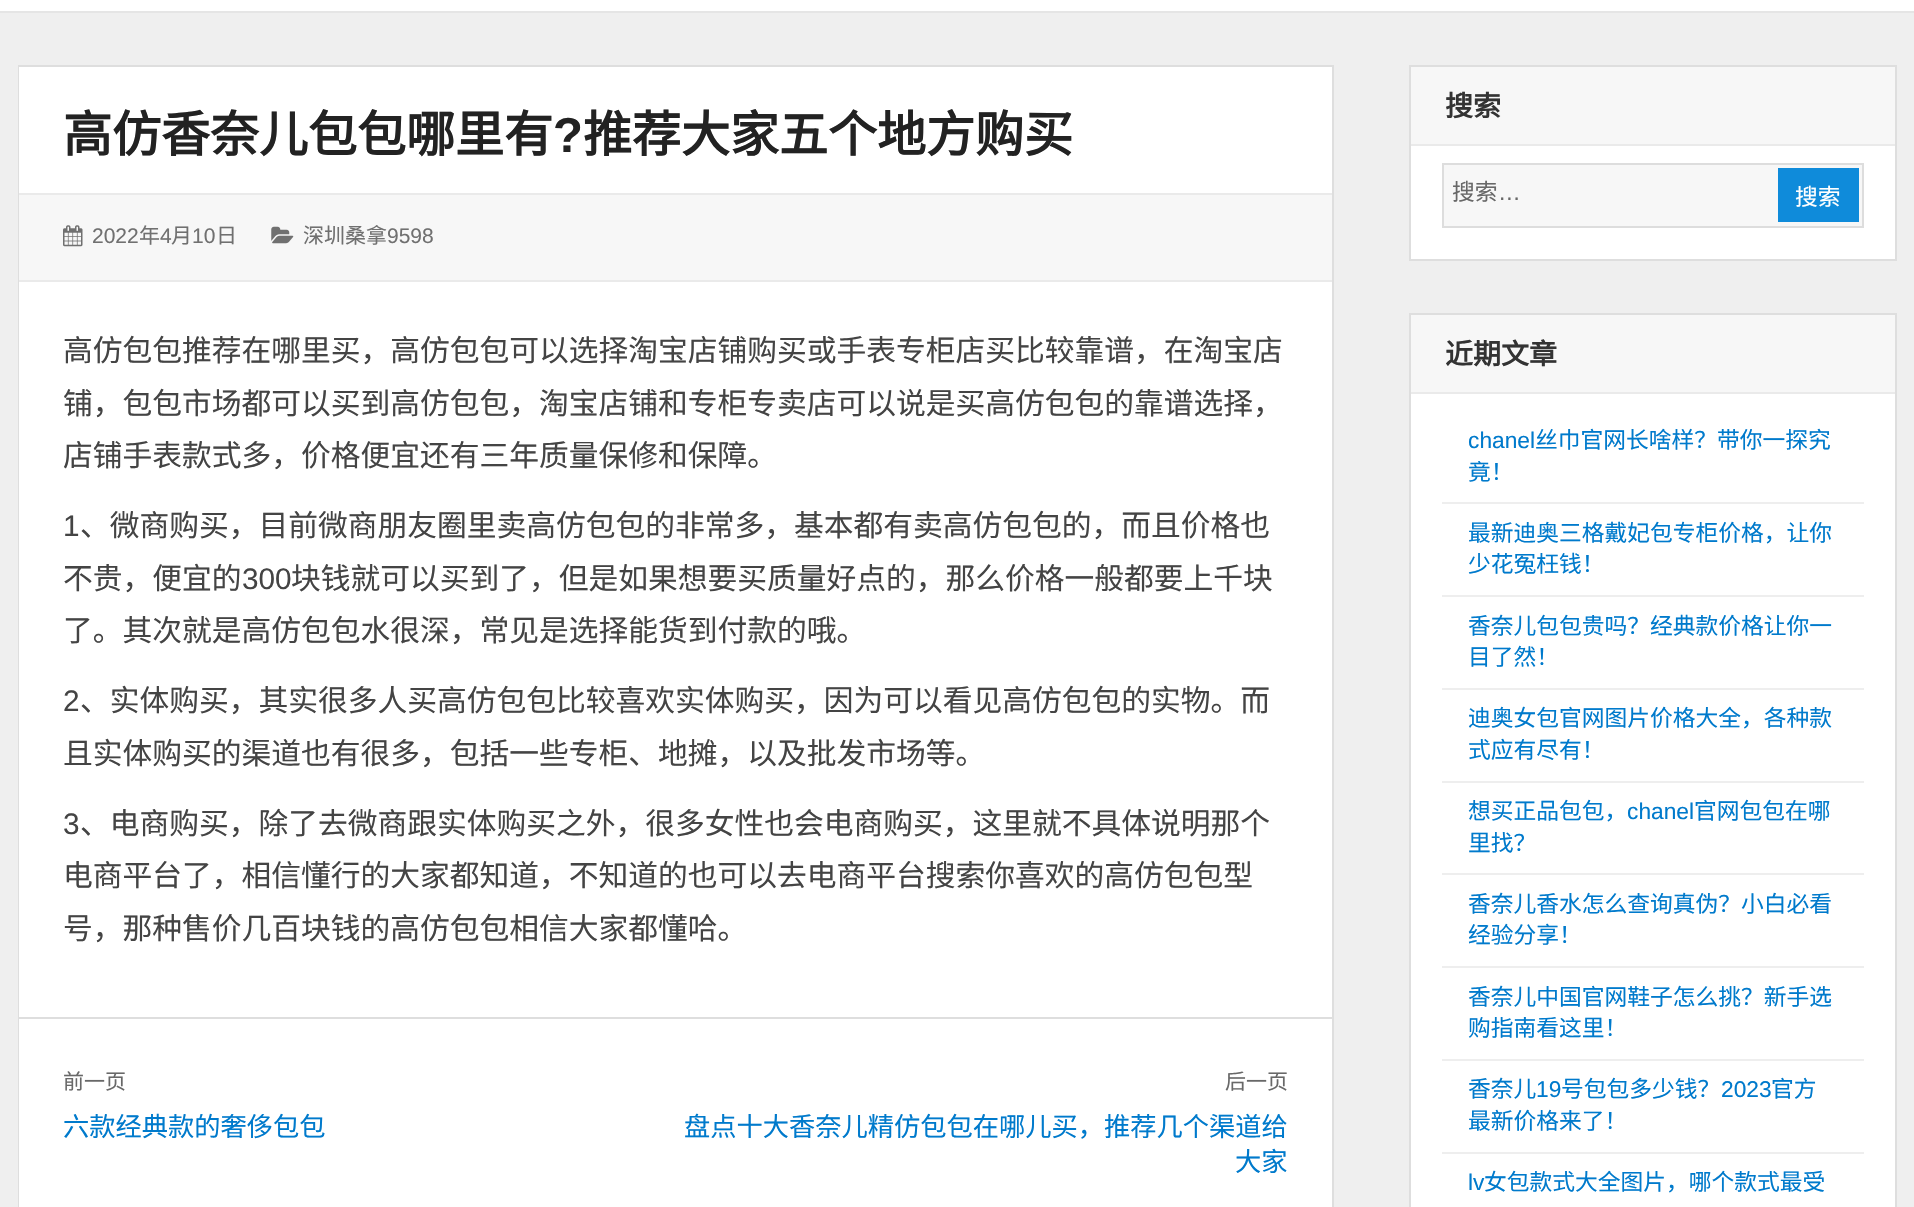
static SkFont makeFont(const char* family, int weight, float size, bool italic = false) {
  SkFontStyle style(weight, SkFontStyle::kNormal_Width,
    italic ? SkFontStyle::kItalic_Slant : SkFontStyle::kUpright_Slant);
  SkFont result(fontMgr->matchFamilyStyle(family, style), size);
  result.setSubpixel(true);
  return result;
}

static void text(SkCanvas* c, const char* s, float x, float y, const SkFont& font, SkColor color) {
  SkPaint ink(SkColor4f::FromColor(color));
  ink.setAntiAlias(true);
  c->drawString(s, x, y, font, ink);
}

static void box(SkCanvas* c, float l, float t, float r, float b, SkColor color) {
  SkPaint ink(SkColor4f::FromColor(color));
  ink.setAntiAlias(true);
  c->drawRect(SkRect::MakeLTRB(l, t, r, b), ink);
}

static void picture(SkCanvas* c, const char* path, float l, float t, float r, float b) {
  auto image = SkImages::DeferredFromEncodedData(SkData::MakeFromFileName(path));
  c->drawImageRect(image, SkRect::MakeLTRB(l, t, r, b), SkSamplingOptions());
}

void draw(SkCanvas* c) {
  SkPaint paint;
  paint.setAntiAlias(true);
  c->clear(0xffefefef);
  box(c, 0, 0, 1914, 11, 0xffffffff);
  box(c, 0, 11, 1914, 13, 0xffe5e5e5);
  paint.setStyle(SkPaint::kStroke_Style);
  paint.setStrokeWidth(2);
  paint.setColor(0xffdedede);
  c->drawRect(SkRect::MakeLTRB(19, 66, 1333, 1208), paint);
  box(c, 19, 67, 1332, 1207, 0xffffffff);
  SkFont face1 = makeFont("Noto Sans CJK SC", 700, 49);
  text(c, "高仿香奈儿包包哪里有", 63, 152, face1, 0xff222222);
  SkFont face2 = makeFont("Liberation Sans", 700, 49);
  text(c, "?", 553, 152, face2, 0xff222222);
  text(c, "推荐大家五个地方购买", 583, 152, face1, 0xff222222);
  box(c, 19, 195, 1332, 280, 0xfff7f7f7);
  box(c, 19, 193, 1332, 195, 0xffeaeaea);
  box(c, 19, 280, 1332, 282, 0xffeaeaea);
  picture(c, "img_01.png", 63, 225, 83, 247);
  SkFont face3 = makeFont("Liberation Sans", 400, 21);
  text(c, "2022", 92, 243, face3, 0xff707070);
  SkFont face4 = makeFont("Noto Sans CJK SC", 400, 21);
  text(c, "年", 139, 243, face4, 0xff707070);
  text(c, "4", 160, 243, face3, 0xff707070);
  text(c, "月", 171, 243, face4, 0xff707070);
  text(c, "10", 192, 243, face3, 0xff707070);
  text(c, "日", 216, 243, face4, 0xff707070);
  picture(c, "img_02.png", 271, 226, 294, 244);
  text(c, "深圳桑拿", 303, 243, face4, 0xff707070);
  text(c, "9598", 387, 243, face3, 0xff707070);
  SkFont face5 = makeFont("Noto Sans CJK SC", 400, 29.75f);
  text(c, "高仿包包推荐在哪里买，高仿包包可以选择淘宝店铺购买或手表专柜店买比较靠谱，在淘宝店", 63, 361, face5, 0xff444444);
  text(c, "铺，包包市场都可以买到高仿包包，淘宝店铺和专柜专卖店可以说是买高仿包包的靠谱选择，", 63, 414, face5, 0xff444444);
  text(c, "店铺手表款式多，价格便宜还有三年质量保修和保障。", 63, 466, face5, 0xff444444);
  SkFont face6 = makeFont("Liberation Sans", 400, 29.75f);
  text(c, "1", 63, 536, face6, 0xff444444);
  text(c, "、微商购买，目前微商朋友圈里卖高仿包包的非常多，基本都有卖高仿包包的，而且价格也", 80, 536, face5, 0xff444444);
  text(c, "不贵，便宜的", 63, 589, face5, 0xff444444);
  text(c, "300", 242, 589, face6, 0xff444444);
  text(c, "块钱就可以买到了，但是如果想要买质量好点的，那么价格一般都要上千块", 291, 589, face5, 0xff444444);
  text(c, "了。其次就是高仿包包水很深，常见是选择能货到付款的哦。", 63, 641, face5, 0xff444444);
  text(c, "2", 63, 711, face6, 0xff444444);
  text(c, "、实体购买，其实很多人买高仿包包比较喜欢实体购买，因为可以看见高仿包包的实物。而", 80, 711, face5, 0xff444444);
  text(c, "且实体购买的渠道也有很多，包括一些专柜、地摊，以及批发市场等。", 63, 764, face5, 0xff444444);
  text(c, "3", 63, 834, face6, 0xff444444);
  text(c, "、电商购买，除了去微商跟实体购买之外，很多女性也会电商购买，这里就不具体说明那个", 80, 834, face5, 0xff444444);
  text(c, "电商平台了，相信懂行的大家都知道，不知道的也可以去电商平台搜索你喜欢的高仿包包型", 63, 886, face5, 0xff444444);
  text(c, "号，那种售价几百块钱的高仿包包相信大家都懂哈。", 63, 939, face5, 0xff444444);
  box(c, 19, 1017, 1332, 1019, 0xffdedede);
  text(c, "前一页", 63, 1089, face4, 0xff686868);
  SkFont face7 = makeFont("Noto Sans CJK SC", 400, 26.25f);
  text(c, "六款经典款的奢侈包包", 63, 1136, face7, 0xff007acc);
  text(c, "后一页", 1225, 1089, face4, 0xff686868);
  text(c, "盘点十大香奈儿精仿包包在哪儿买，推荐几个渠道给", 684, 1136, face7, 0xff007acc);
  text(c, "大家", 1235, 1171, face7, 0xff007acc);
  box(c, 1411, 146, 1895, 259, 0xffffffff);
  c->drawRect(SkRect::MakeLTRB(1410, 66, 1896, 260), paint);
  box(c, 1411, 67, 1895, 144, 0xfff7f7f7);
  box(c, 1411, 144, 1895, 146, 0xffeaeaea);
  SkFont face8 = makeFont("Noto Sans CJK SC", 700, 28);
  text(c, "搜索", 1445, 116, face8, 0xff333333);
  paint.setStyle(SkPaint::kFill_Style);
  paint.setColor(0xfff7f7f7);
  c->drawRect(SkRect::MakeLTRB(1443, 164, 1863, 227), paint);
  paint.setStyle(SkPaint::kStroke_Style);
  paint.setColor(0xffdddddd);
  c->drawRect(SkRect::MakeLTRB(1443, 164, 1863, 227), paint);
  SkFont face9 = makeFont("Noto Sans CJK SC", 400, 22.75f);
  text(c, "搜索", 1452, 200, face9, 0xff686868);
  SkFont face10 = makeFont("Liberation Sans", 400, 22.75f);
  text(c, "…", 1498, 200, face10, 0xff686868);
  box(c, 1778, 168, 1859, 222, 0xff0f8bda);
  text(c, "搜索", 1795, 205, face9, 0xffffffff);
  box(c, 1411, 394, 1895, 1207, 0xffffffff);
  paint.setColor(0xffdedede);
  c->drawRect(SkRect::MakeLTRB(1410, 314, 1896, 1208), paint);
  box(c, 1411, 315, 1895, 392, 0xfff7f7f7);
  box(c, 1411, 392, 1895, 394, 0xffeaeaea);
  text(c, "近期文章", 1445, 364, face8, 0xff333333);
  box(c, 1442, 502, 1864, 504, 0xffeeeeee);
  text(c, "chanel", 1468, 448, face10, 0xff007acc);
  text(c, "丝巾官网长啥样？带你一探究", 1535, 448, face9, 0xff007acc);
  text(c, "竟！", 1468, 480, face9, 0xff007acc);
  box(c, 1442, 595, 1864, 597, 0xffeeeeee);
  text(c, "最新迪奥三格戴妃包专柜价格，让你", 1468, 541, face9, 0xff007acc);
  text(c, "少花冤枉钱！", 1468, 572, face9, 0xff007acc);
  box(c, 1442, 688, 1864, 690, 0xffeeeeee);
  text(c, "香奈儿包包贵吗？经典款价格让你一", 1468, 634, face9, 0xff007acc);
  text(c, "目了然！", 1468, 665, face9, 0xff007acc);
  box(c, 1442, 781, 1864, 783, 0xffeeeeee);
  text(c, "迪奥女包官网图片价格大全，各种款", 1468, 726, face9, 0xff007acc);
  text(c, "式应有尽有！", 1468, 758, face9, 0xff007acc);
  box(c, 1442, 873, 1864, 875, 0xffeeeeee);
  text(c, "想买正品包包，", 1468, 819, face9, 0xff007acc);
  text(c, "chanel", 1627, 819, face10, 0xff007acc);
  text(c, "官网包包在哪", 1694, 819, face9, 0xff007acc);
  text(c, "里找？", 1468, 851, face9, 0xff007acc);
  box(c, 1442, 966, 1864, 968, 0xffeeeeee);
  text(c, "香奈儿香水怎么查询真伪？小白必看", 1468, 912, face9, 0xff007acc);
  text(c, "经验分享！", 1468, 943, face9, 0xff007acc);
  box(c, 1442, 1059, 1864, 1061, 0xffeeeeee);
  text(c, "香奈儿中国官网鞋子怎么挑？新手选", 1468, 1005, face9, 0xff007acc);
  text(c, "购指南看这里！", 1468, 1036, face9, 0xff007acc);
  box(c, 1442, 1152, 1864, 1154, 0xffeeeeee);
  text(c, "香奈儿", 1468, 1097, face9, 0xff007acc);
  text(c, "19", 1536, 1097, face10, 0xff007acc);
  text(c, "号包包多少钱？", 1561, 1097, face9, 0xff007acc);
  text(c, "2023", 1721, 1097, face10, 0xff007acc);
  text(c, "官方", 1771, 1097, face9, 0xff007acc);
  text(c, "最新价格来了！", 1468, 1129, face9, 0xff007acc);
  text(c, "lv", 1468, 1190, face10, 0xff007acc);
  text(c, "女包款式大全图片，哪个款式最受", 1484, 1190, face9, 0xff007acc);
}
